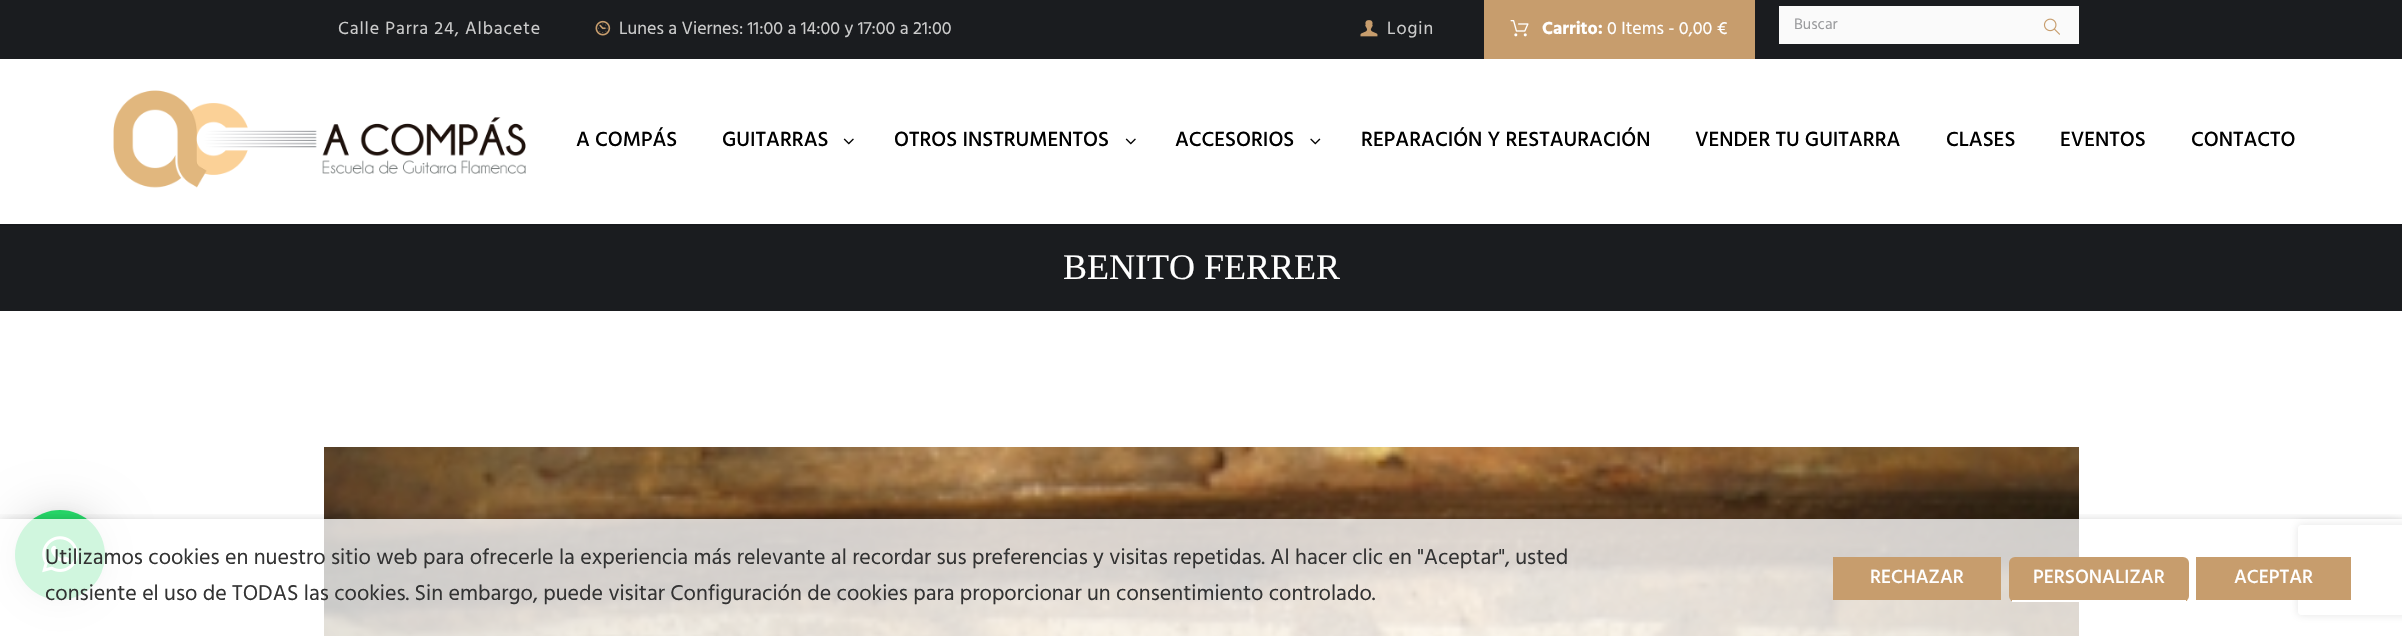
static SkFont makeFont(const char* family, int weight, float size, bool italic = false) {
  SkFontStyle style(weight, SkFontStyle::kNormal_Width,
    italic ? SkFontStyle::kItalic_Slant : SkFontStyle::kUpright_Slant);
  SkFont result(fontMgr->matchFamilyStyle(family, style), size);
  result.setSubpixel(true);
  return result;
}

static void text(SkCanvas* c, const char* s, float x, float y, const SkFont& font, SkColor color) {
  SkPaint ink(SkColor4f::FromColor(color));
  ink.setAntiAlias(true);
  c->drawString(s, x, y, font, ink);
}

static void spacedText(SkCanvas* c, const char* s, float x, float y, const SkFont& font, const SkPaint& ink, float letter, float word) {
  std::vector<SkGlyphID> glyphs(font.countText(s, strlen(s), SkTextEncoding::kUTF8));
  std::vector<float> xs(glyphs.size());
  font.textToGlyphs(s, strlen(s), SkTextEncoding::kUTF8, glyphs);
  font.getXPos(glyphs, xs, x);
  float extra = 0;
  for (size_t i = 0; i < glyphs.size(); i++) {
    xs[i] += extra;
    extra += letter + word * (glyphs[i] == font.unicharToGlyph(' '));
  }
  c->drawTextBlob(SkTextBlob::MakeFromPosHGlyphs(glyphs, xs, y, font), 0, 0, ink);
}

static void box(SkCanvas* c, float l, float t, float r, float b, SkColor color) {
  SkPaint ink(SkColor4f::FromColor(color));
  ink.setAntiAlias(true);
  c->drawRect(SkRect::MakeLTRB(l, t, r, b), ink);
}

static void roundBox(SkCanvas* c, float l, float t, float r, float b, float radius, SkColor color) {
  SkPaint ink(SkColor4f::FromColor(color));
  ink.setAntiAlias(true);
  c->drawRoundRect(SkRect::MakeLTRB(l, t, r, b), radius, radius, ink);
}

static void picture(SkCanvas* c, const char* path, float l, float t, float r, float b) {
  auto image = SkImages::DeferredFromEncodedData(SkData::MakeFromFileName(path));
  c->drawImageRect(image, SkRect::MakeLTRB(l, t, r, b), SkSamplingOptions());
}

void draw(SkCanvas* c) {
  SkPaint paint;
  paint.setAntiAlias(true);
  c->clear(0xffffffff);
  box(c, 0, 0, 2402, 59, 0xff1a1c1f);
  SkFont face1 = makeFont("Hind", 400, 18);
  paint.setColor(0xffcccccc);
  spacedText(c, "Calle Parra 24, Albacete", 338, 34, face1, paint, 0.9f, 0);
  picture(c, "img_01.png", 595, 20, 611, 36);
  text(c, "Lunes a Viernes: 11:00 a 14:00 y 17:00 a 21:00", 619, 34, face1, 0xffcccccc);
  picture(c, "img_02.png", 1360, 20, 1378, 37);
  spacedText(c, "Login", 1387, 34, face1, paint, 0.9f, 0);
  box(c, 1484, 0, 1755, 59, 0xffc79d6d);
  picture(c, "img_03.png", 1510, 20, 1529, 37);
  SkFont face2 = makeFont("Hind", 700, 18);
  text(c, "Carrito:", 1542, 34, face2, 0xffffffff);
  text(c, "0 Items - 0,00 €", 1607, 34, face1, 0xffffffff);
  box(c, 1779, 6, 2079, 44, 0xfffafafa);
  SkFont face3 = makeFont("Hind", 400, 15.5f);
  text(c, "Buscar", 1794, 29, face3, 0xff9b9c9e);
  picture(c, "img_04.png", 2043, 18, 2060, 35);
  picture(c, "img_05.png", 113, 90, 526, 188);
  SkFont face4 = makeFont("Hind", 500, 21);
  text(c, "A COMPÁS", 576, 146, face4, 0xff000000);
  text(c, "GUITARRAS", 722, 146, face4, 0xff000000);
  picture(c, "img_06.png", 843, 138, 854, 145);
  text(c, "OTROS INSTRUMENTOS", 894, 146, face4, 0xff000000);
  picture(c, "img_06.png", 1125, 138, 1136, 145);
  text(c, "ACCESORIOS", 1175, 146, face4, 0xff000000);
  picture(c, "img_07.png", 1310, 138, 1321, 145);
  text(c, "REPARACIÓN Y RESTAURACIÓN", 1361, 146, face4, 0xff000000);
  text(c, "VENDER TU GUITARRA", 1695, 146, face4, 0xff000000);
  text(c, "CLASES", 1946, 146, face4, 0xff000000);
  text(c, "EVENTOS", 2060, 146, face4, 0xff000000);
  text(c, "CONTACTO", 2191, 146, face4, 0xff000000);
  box(c, 0, 226, 2402, 311, 0xff1a1c1f);
  box(c, 0, 224, 2402, 226, 0xff17191c);
  SkFont face5 = makeFont("Liberation Serif", 400, 36);
  text(c, "BENITO FERRER", 1063, 279, face5, 0xffffffff);
  picture(c, "img_08.png", 324, 447, 2079, 636);
  paint.setColor(0x29000000);
  paint.setMaskFilter(SkMaskFilter::MakeBlur(kNormal_SkBlurStyle, 24));
  c->drawRoundRect(SkRect::MakeLTRB(15, 513, 105, 603), 45, 45, paint);
  paint.setMaskFilter(nullptr);
  paint.setColor(0x0f000000);
  paint.setMaskFilter(SkMaskFilter::MakeBlur(kNormal_SkBlurStyle, 4.5f));
  c->drawRoundRect(SkRect::MakeLTRB(15, 512, 105, 602), 45, 45, paint);
  paint.setMaskFilter(nullptr);
  paint.setColor(0xff25d366);
  c->drawCircle(60, 555, 45, paint);
  picture(c, "img_09.png", 42, 536, 78, 573);
  c->save();
  c->clipPath(SkPathBuilder(SkPathFillType::kEvenOdd).moveTo(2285, 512).lineTo(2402, 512).lineTo(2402, 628).lineTo(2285, 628).close().moveTo(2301, 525).lineTo(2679, 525).cubicTo(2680.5f, 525, 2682, 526.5f, 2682, 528).lineTo(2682, 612).cubicTo(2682, 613.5f, 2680.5f, 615, 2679, 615).lineTo(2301, 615).cubicTo(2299.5f, 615, 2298, 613.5f, 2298, 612).lineTo(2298, 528).cubicTo(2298, 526.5f, 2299.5f, 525, 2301, 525).close().detach(), true);
  paint.setColor(0xff808080);
  paint.setMaskFilter(SkMaskFilter::MakeBlur(kNormal_SkBlurStyle, 4));
  c->drawRoundRect(SkRect::MakeLTRB(2298, 525, 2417, 615), 3, 3, paint);
  paint.setMaskFilter(nullptr);
  c->restore();
  c->save();
  c->clipRect(SkRect::MakeLTRB(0, 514, 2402, 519));
  paint.setColor(0x80000000);
  paint.setMaskFilter(SkMaskFilter::MakeBlur(kNormal_SkBlurStyle, 7.5f));
  c->drawRect(SkRect::MakeLTRB(0, 527, 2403, 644), paint);
  paint.setMaskFilter(nullptr);
  c->restore();
  box(c, 0, 519, 2402, 636, 0xc7ffffff);
  SkFont face6 = makeFont("Hind", 400, 22);
  text(c, "Utilizamos cookies en nuestro sitio web para ofrecerle la experiencia más relevante al recordar sus preferencias y visitas repetidas. Al hacer clic en \"Aceptar\", usted", 45, 564, face6, 0xff333333);
  text(c, "consiente el uso de TODAS las cookies. Sin embargo, puede visitar Configuración de cookies para proporcionar un consentimiento controlado.", 45, 600, face6, 0xff333333);
  box(c, 1833, 557, 2001, 600, 0xffc79d6d);
  SkFont face7 = makeFont("Hind", 500, 19.5f);
  text(c, "RECHAZAR", 1870, 583, face7, 0xffffffff);
  roundBox(c, 2009, 557, 2189, 602, 6, 0xffc79d6d);
  box(c, 2012, 600, 2186, 602, 0xffffffff);
  text(c, "PERSONALIZAR", 2033, 583, face7, 0xffffffff);
  box(c, 2196, 557, 2351, 600, 0xffc79d6d);
  text(c, "ACEPTAR", 2234, 583, face7, 0xffffffff);
}
